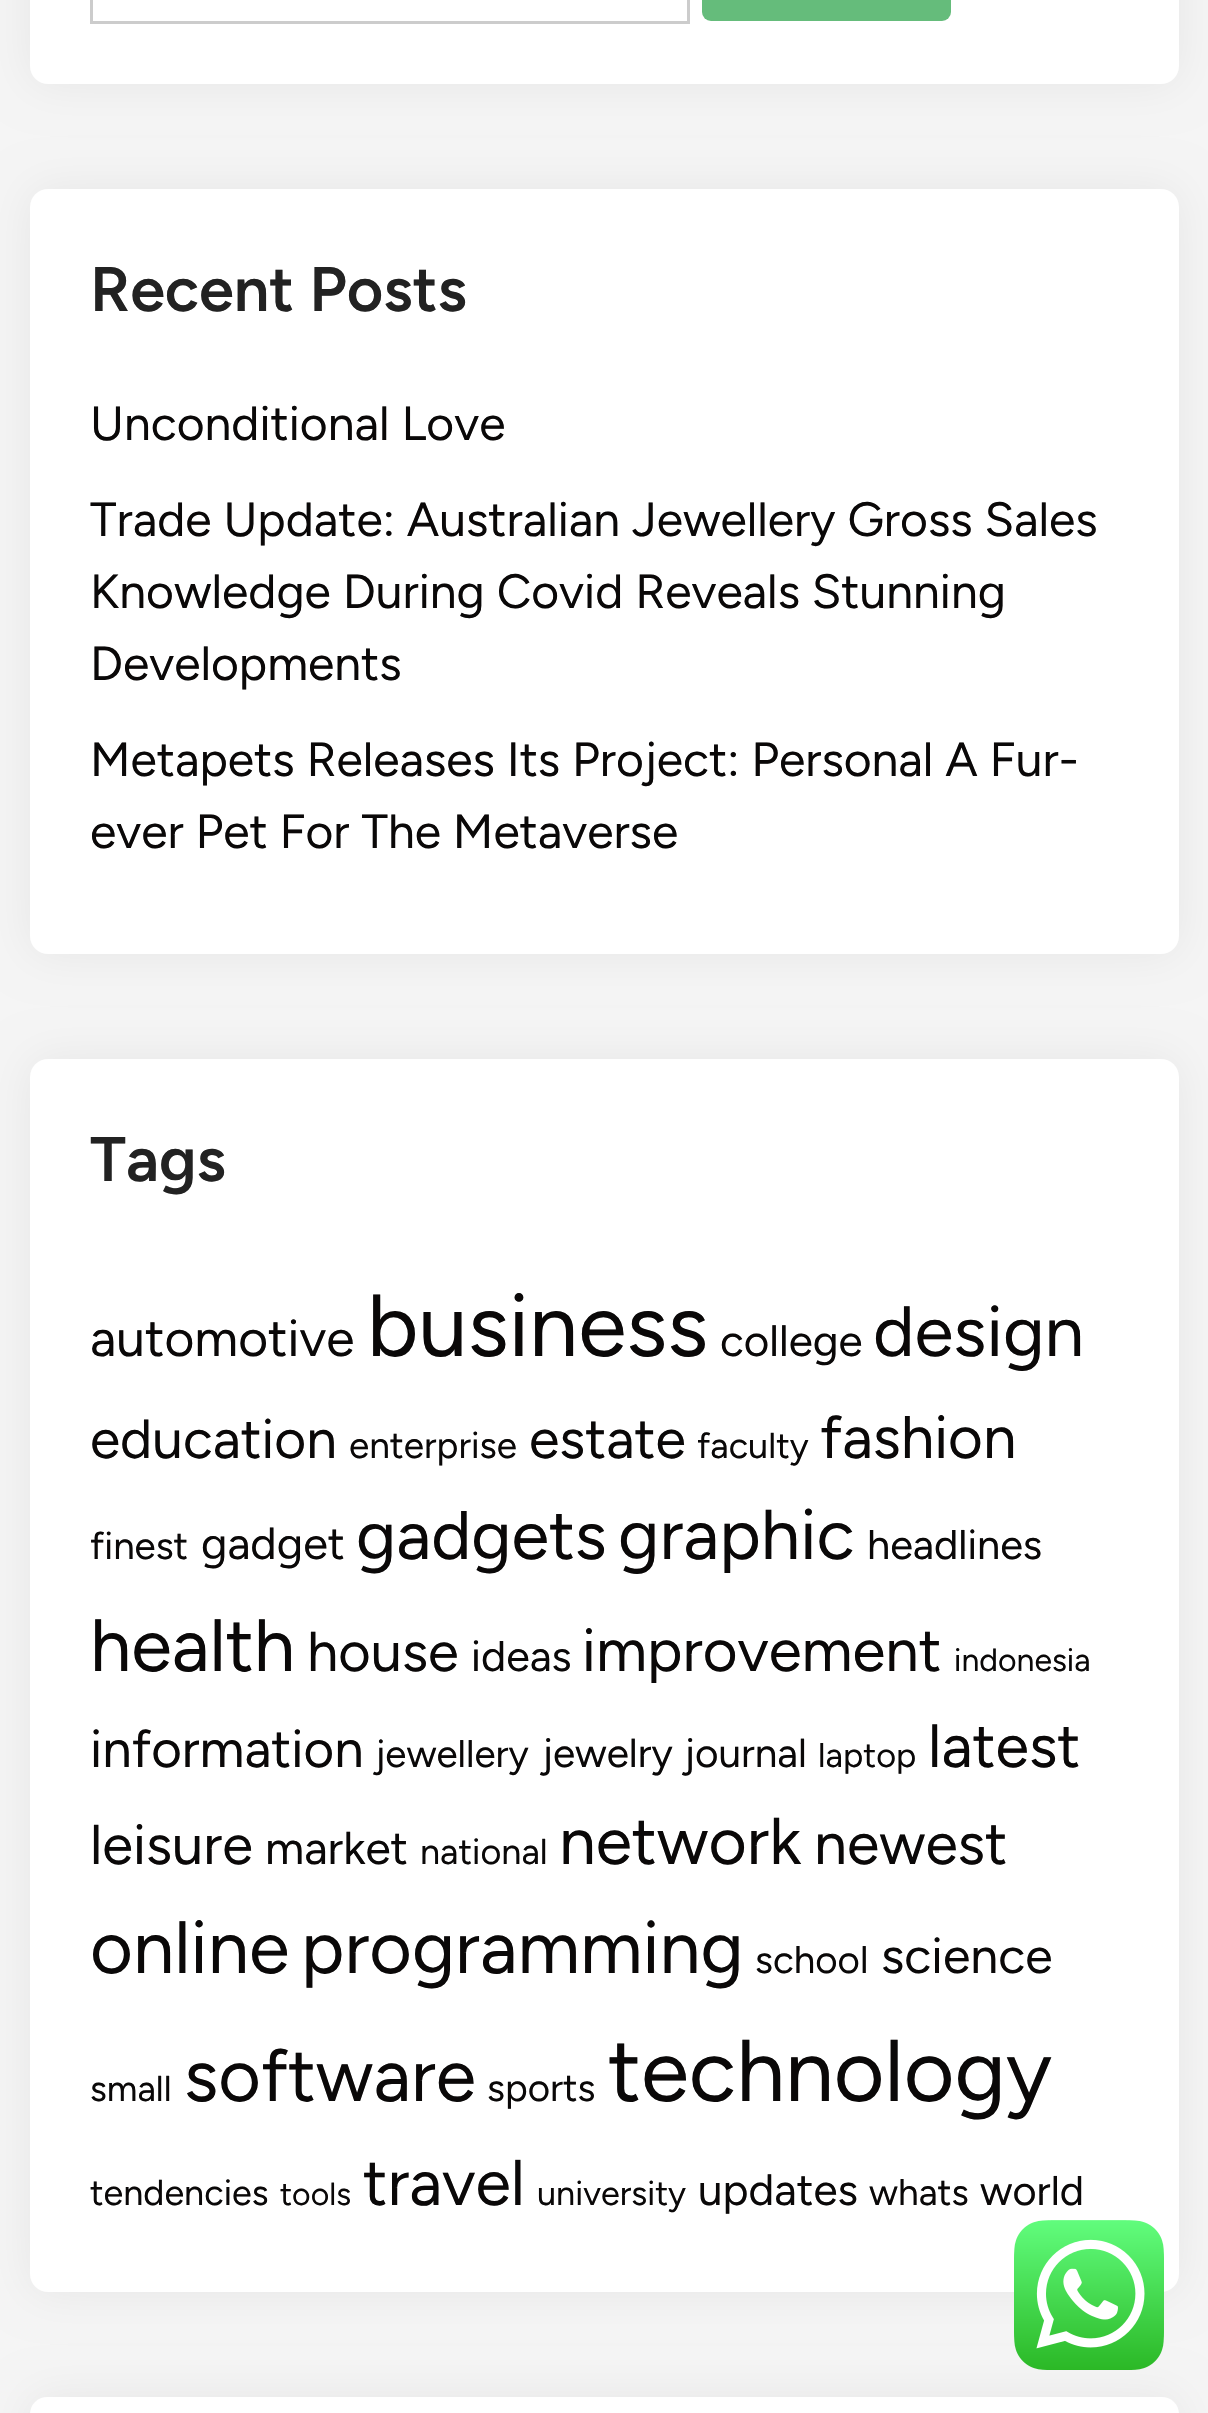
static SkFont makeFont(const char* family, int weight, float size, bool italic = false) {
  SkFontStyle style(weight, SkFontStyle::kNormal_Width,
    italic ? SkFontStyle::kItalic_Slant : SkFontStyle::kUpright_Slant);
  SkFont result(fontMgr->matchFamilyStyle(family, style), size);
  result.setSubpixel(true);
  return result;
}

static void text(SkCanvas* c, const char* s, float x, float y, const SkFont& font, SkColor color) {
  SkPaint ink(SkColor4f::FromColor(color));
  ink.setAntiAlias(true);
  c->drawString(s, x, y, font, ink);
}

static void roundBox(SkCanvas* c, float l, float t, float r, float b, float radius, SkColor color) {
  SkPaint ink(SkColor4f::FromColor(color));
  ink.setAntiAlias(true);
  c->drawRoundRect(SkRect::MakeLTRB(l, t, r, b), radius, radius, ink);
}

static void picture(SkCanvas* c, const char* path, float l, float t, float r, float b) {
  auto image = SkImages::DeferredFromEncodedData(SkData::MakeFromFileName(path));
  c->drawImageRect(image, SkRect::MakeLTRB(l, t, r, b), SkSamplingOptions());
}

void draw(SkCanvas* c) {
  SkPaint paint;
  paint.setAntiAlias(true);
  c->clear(0xfff5f5f5);
  paint.setColor(0x0f000000);
  paint.setMaskFilter(SkMaskFilter::MakeBlur(kNormal_SkBlurStyle, 22.5f));
  c->drawRoundRect(SkRect::MakeLTRB(30, -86, 1179, 84), 18, 18, paint);
  paint.setMaskFilter(nullptr);
  roundBox(c, 30, -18, 1179, 84, 18, 0xffffffff);
  paint.setStyle(SkPaint::kStroke_Style);
  paint.setStrokeWidth(3);
  paint.setColor(0xffcccccc);
  c->drawRect(SkRect::MakeLTRB(91.5f, -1.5f, 688.5f, 22.5f), paint);
  roundBox(c, 702, -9, 951, 21, 9, 0xff65bc7b);
  paint.setStyle(SkPaint::kFill_Style);
  paint.setColor(0x0f000000);
  paint.setMaskFilter(SkMaskFilter::MakeBlur(kNormal_SkBlurStyle, 22.5f));
  c->drawRoundRect(SkRect::MakeLTRB(30, 189, 1179, 954), 18, 18, paint);
  paint.setMaskFilter(nullptr);
  roundBox(c, 30, 189, 1179, 954, 18, 0xffffffff);
  SkFont face1 = makeFont("Figtree", 600, 63);
  text(c, "Recent Posts", 90, 311, face1, 0xff222222);
  SkFont face2 = makeFont("Figtree", 400, 48);
  text(c, "Unconditional Love", 90, 440, face2, 0xff0a0808);
  text(c, "Trade Update: Australian Jewellery Gross Sales", 90, 536, face2, 0xff0a0808);
  text(c, "Knowledge During Covid Reveals Stunning", 90, 608, face2, 0xff0a0808);
  text(c, "Developments", 90, 680, face2, 0xff0a0808);
  text(c, "Metapets Releases Its Project: Personal A Fur-", 90, 776, face2, 0xff0a0808);
  text(c, "ever Pet For The Metaverse", 90, 848, face2, 0xff0a0808);
  paint.setMaskFilter(SkMaskFilter::MakeBlur(kNormal_SkBlurStyle, 22.5f));
  c->drawRoundRect(SkRect::MakeLTRB(30, 1059, 1179, 2292), 18, 18, paint);
  paint.setMaskFilter(nullptr);
  roundBox(c, 30, 1059, 1179, 2292, 18, 0xffffffff);
  text(c, "Tags", 90, 1181, face1, 0xff222222);
  SkFont face3 = makeFont("Figtree", 400, 51.5f);
  text(c, "automotive", 90, 1356, face3, 0xff0a0808);
  SkFont face4 = makeFont("Figtree", 400, 88);
  text(c, "business", 367, 1356, face4, 0xff0a0808);
  SkFont face5 = makeFont("Figtree", 400, 44);
  text(c, "college", 720, 1356, face5, 0xff0a0808);
  SkFont face6 = makeFont("Figtree", 400, 71);
  text(c, "design", 873, 1356, face6, 0xff0a0808);
  SkFont face7 = makeFont("Figtree", 400, 55);
  text(c, "education", 90, 1458, face7, 0xff0a0808);
  SkFont face8 = makeFont("Figtree", 400, 37);
  text(c, "enterprise", 349, 1458, face8, 0xff0a0808);
  SkFont face9 = makeFont("Figtree", 400, 55.5f);
  text(c, "estate", 529, 1458, face9, 0xff0a0808);
  SkFont face10 = makeFont("Figtree", 400, 36);
  text(c, "faculty", 697, 1458, face10, 0xff0a0808);
  SkFont face11 = makeFont("Figtree", 400, 60);
  text(c, "fashion", 820, 1458, face11, 0xff0a0808);
  SkFont face12 = makeFont("Figtree", 400, 38.5f);
  text(c, "finest", 90, 1559, face12, 0xff0a0808);
  SkFont face13 = makeFont("Figtree", 400, 45);
  text(c, "gadget", 201, 1559, face13, 0xff0a0808);
  SkFont face14 = makeFont("Figtree", 400, 68.5f);
  text(c, "gadgets", 356, 1559, face14, 0xff0a0808);
  SkFont face15 = makeFont("Figtree", 400, 70.5f);
  text(c, "graphic", 618, 1559, face15, 0xff0a0808);
  SkFont face16 = makeFont("Figtree", 400, 41.5f);
  text(c, "headlines", 867, 1559, face16, 0xff0a0808);
  SkFont face17 = makeFont("Figtree", 400, 74);
  text(c, "health", 90, 1671, face17, 0xff0a0808);
  SkFont face18 = makeFont("Figtree", 400, 56);
  text(c, "house", 307, 1671, face18, 0xff0a0808);
  SkFont face19 = makeFont("Figtree", 400, 43);
  text(c, "ideas", 471, 1671, face19, 0xff0a0808);
  text(c, "improvement", 582, 1671, face11, 0xff0a0808);
  SkFont face20 = makeFont("Figtree", 400, 32);
  text(c, "indonesia", 954, 1671, face20, 0xff0a0808);
  SkFont face21 = makeFont("Figtree", 400, 52.75f);
  text(c, "information", 90, 1767, face21, 0xff0a0808);
  text(c, "jewellery", 375, 1767, face12, 0xff0a0808);
  SkFont face22 = makeFont("Figtree", 400, 40.5f);
  text(c, "jewelry", 542, 1767, face22, 0xff0a0808);
  text(c, "journal", 684, 1767, face22, 0xff0a0808);
  SkFont face23 = makeFont("Figtree", 400, 34.25f);
  text(c, "laptop", 818, 1767, face23, 0xff0a0808);
  SkFont face24 = makeFont("Figtree", 400, 61);
  text(c, "latest", 928, 1767, face24, 0xff0a0808);
  text(c, "leisure", 90, 1864, face18, 0xff0a0808);
  SkFont face25 = makeFont("Figtree", 400, 46);
  text(c, "market", 265, 1864, face25, 0xff0a0808);
  text(c, "national", 420, 1864, face10, 0xff0a0808);
  SkFont face26 = makeFont("Figtree", 400, 66);
  text(c, "network", 559, 1864, face26, 0xff0a0808);
  SkFont face27 = makeFont("Figtree", 400, 59);
  text(c, "newest", 814, 1864, face27, 0xff0a0808);
  text(c, "online", 90, 1973, face17, 0xff0a0808);
  SkFont face28 = makeFont("Figtree", 400, 73.5f);
  text(c, "programming", 301, 1973, face28, 0xff0a0808);
  text(c, "school", 755, 1973, face12, 0xff0a0808);
  SkFont face29 = makeFont("Figtree", 400, 50);
  text(c, "science", 881, 1973, face29, 0xff0a0808);
  text(c, "small", 90, 2101, face10, 0xff0a0808);
  text(c, "software", 184, 2101, face28, 0xff0a0808);
  text(c, "sports", 487, 2101, face12, 0xff0a0808);
  SkFont face30 = makeFont("Figtree", 400, 87.5f);
  text(c, "technology", 608, 2101, face30, 0xff0a0808);
  text(c, "tendencies", 90, 2205, face10, 0xff0a0808);
  text(c, "tools", 280, 2205, face20, 0xff0a0808);
  SkFont face31 = makeFont("Figtree", 400, 64.5f);
  text(c, "travel", 363, 2205, face31, 0xff0a0808);
  text(c, "university", 537, 2205, face23, 0xff0a0808);
  text(c, "updates", 698, 2205, face5, 0xff0a0808);
  text(c, "whats", 869, 2205, face8, 0xff0a0808);
  text(c, "world", 980, 2205, face16, 0xff0a0808);
  paint.setMaskFilter(SkMaskFilter::MakeBlur(kNormal_SkBlurStyle, 22.5f));
  c->drawRoundRect(SkRect::MakeLTRB(30, 2397, 1179, 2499), 18, 18, paint);
  paint.setMaskFilter(nullptr);
  roundBox(c, 30, 2397, 1179, 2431, 18, 0xffffffff);
  picture(c, "img_01.png", 1014, 2220, 1164, 2370);
}
